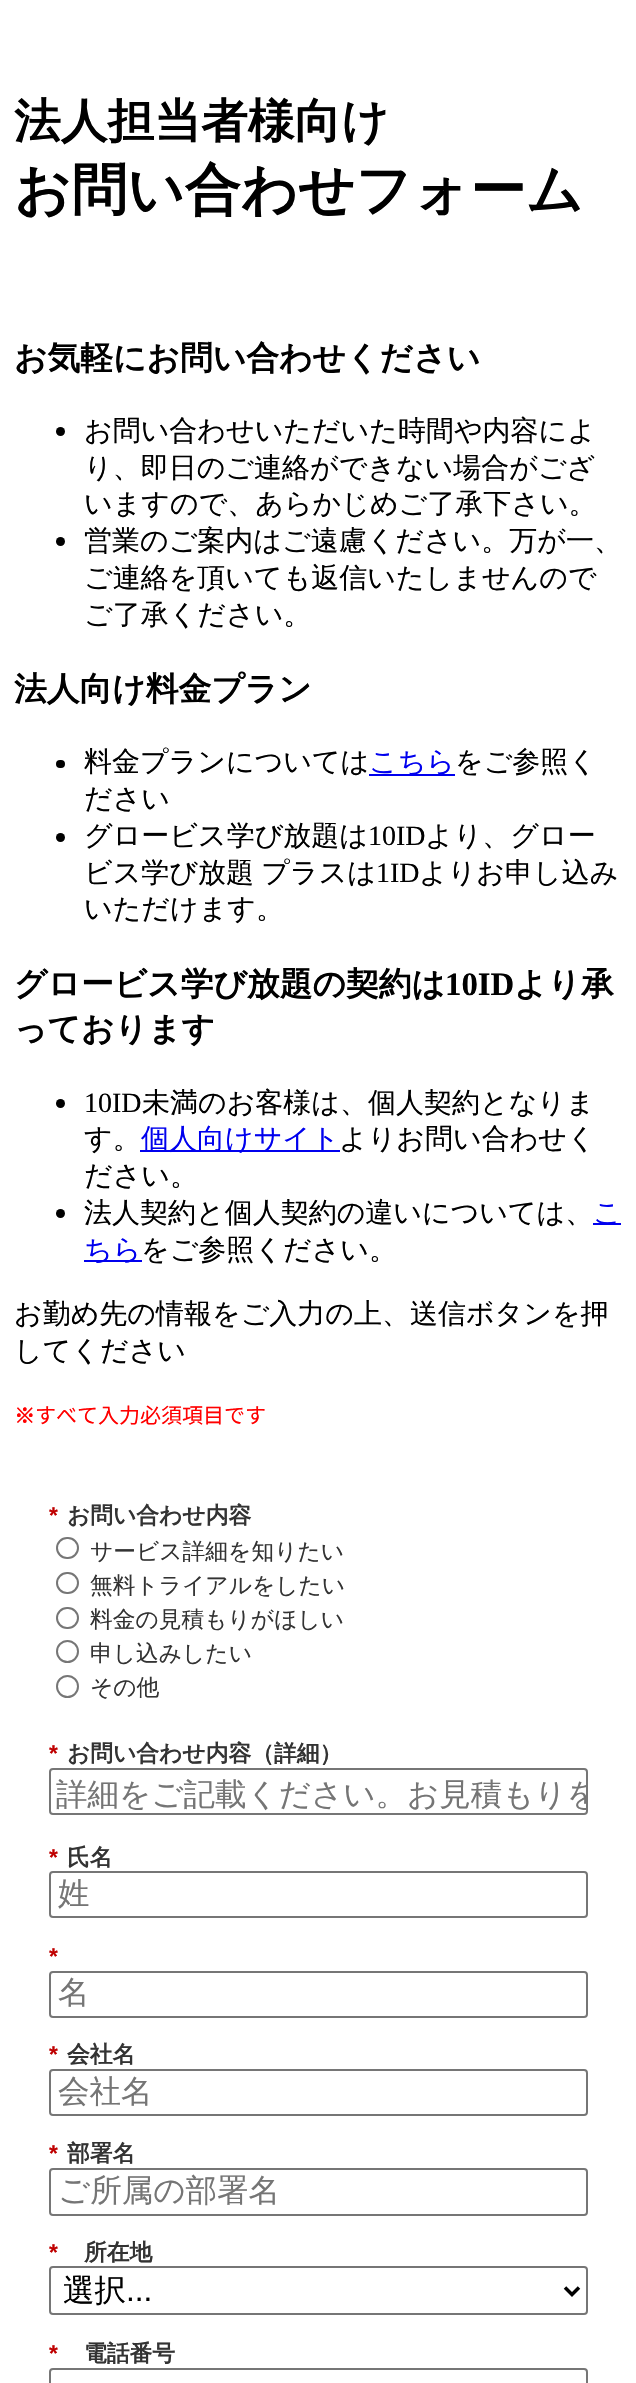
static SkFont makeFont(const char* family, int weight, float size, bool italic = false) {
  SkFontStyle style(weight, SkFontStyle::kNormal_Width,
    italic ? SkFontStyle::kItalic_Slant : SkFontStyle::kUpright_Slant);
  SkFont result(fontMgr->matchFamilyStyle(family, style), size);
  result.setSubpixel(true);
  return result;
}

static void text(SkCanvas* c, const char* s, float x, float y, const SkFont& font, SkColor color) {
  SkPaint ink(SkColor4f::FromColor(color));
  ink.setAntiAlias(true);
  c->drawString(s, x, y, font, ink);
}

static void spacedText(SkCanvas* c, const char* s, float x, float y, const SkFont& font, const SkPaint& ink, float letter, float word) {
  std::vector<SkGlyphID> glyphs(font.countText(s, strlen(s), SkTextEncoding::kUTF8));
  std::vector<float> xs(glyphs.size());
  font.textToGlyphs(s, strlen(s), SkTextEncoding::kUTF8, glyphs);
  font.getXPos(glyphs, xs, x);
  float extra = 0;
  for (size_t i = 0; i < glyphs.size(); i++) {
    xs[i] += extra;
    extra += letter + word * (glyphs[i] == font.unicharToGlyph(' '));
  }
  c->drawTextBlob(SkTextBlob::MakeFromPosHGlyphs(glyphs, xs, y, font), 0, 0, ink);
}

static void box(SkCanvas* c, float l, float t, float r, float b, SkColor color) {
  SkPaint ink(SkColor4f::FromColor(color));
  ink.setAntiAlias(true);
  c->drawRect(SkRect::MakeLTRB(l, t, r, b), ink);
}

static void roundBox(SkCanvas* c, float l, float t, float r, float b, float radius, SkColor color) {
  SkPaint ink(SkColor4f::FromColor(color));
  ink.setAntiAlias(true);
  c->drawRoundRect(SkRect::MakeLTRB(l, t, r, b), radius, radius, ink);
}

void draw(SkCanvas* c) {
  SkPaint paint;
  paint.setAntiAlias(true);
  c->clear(0xffffffff);
  SkFont face1 = makeFont("WenQuanYi Zen Hei", 700, 46.75f);
  text(c, "法人担当者様向け", 14, 137, face1, 0xff000000);
  SkFont face2 = makeFont("WenQuanYi Zen Hei", 700, 56);
  text(c, "お問い合わせフォーム", 14, 209, face2, 0xff000000);
  SkFont face3 = makeFont("WenQuanYi Zen Hei", 700, 32.75f);
  text(c, "お気軽にお問い合わせください", 14, 369, face3, 0xff000000);
  paint.setColor(0xff000000);
  c->drawCircle(60.5f, 431.5f, 4.5f, paint);
  SkFont face4 = makeFont("WenQuanYi Zen Hei", 500, 28);
  text(c, "お問い合わせいただいた時間や内容によ", 84, 440, face4, 0xff000000);
  text(c, "り、即日のご連絡ができない場合がござ", 84, 477, face4, 0xff000000);
  text(c, "いますので、あらかじめご了承下さい。", 84, 513, face4, 0xff000000);
  c->drawCircle(60.5f, 541.5f, 4.5f, paint);
  text(c, "営業のご案内はご遠慮ください。万が一、", 84, 550, face4, 0xff000000);
  text(c, "ご連絡を頂いても返信いたしませんので", 84, 587, face4, 0xff000000);
  text(c, "ご了承ください。", 84, 624, face4, 0xff000000);
  text(c, "法人向け料金プラン", 14, 700, face3, 0xff000000);
  roundBox(c, 56, 760, 65, 768, 4, 0xff000000);
  text(c, "料金プランについては", 84, 771, face4, 0xff000000);
  box(c, 369, 774, 455, 776, 0xff0000ee);
  text(c, "こちら", 369, 771, face4, 0xff0000ee);
  text(c, "をご参照く", 455, 771, face4, 0xff000000);
  text(c, "ださい", 84, 808, face4, 0xff000000);
  c->drawCircle(60.5f, 837.5f, 4.5f, paint);
  text(c, "グロービス学び放題は", 84, 845, face4, 0xff000000);
  SkFont face5 = makeFont("Liberation Serif", 400, 28);
  text(c, "10ID", 368, 845, face5, 0xff000000);
  text(c, "より、グロー", 425, 845, face4, 0xff000000);
  spacedText(c, "ビス学び放題 プラスは", 84, 882, face4, paint, 0, -1);
  text(c, "1ID", 376, 882, face5, 0xff000000);
  text(c, "よりお申し込み", 419, 882, face4, 0xff000000);
  text(c, "いただけます。", 84, 918, face4, 0xff000000);
  text(c, "グロービス学び放題の契約は", 14, 995, face3, 0xff000000);
  SkFont face6 = makeFont("Liberation Serif", 700, 32.75f);
  text(c, "10ID", 445, 995, face6, 0xff000000);
  text(c, "より承", 514, 995, face3, 0xff000000);
  text(c, "っております", 14, 1040, face3, 0xff000000);
  c->drawCircle(60.5f, 1103.5f, 4.5f, paint);
  text(c, "10ID", 84, 1112, face5, 0xff000000);
  text(c, "未満のお客様は、個人契約となりま", 142, 1112, face4, 0xff000000);
  text(c, "す。", 84, 1148, face4, 0xff000000);
  box(c, 140, 1150, 340, 1152, 0xff0000ee);
  text(c, "個人向けサイト", 141, 1148, face4, 0xff0000ee);
  text(c, "よりお問い合わせく", 339, 1148, face4, 0xff000000);
  text(c, "ださい。", 84, 1185, face4, 0xff000000);
  c->drawCircle(60.5f, 1213.5f, 4.5f, paint);
  text(c, "法人契約と個人契約の違いについては、", 84, 1222, face4, 0xff000000);
  box(c, 593, 1223, 621, 1225, 0xff0000ee);
  text(c, "こ", 593, 1222, face4, 0xff0000ee);
  box(c, 84, 1260, 142, 1262, 0xff0000ee);
  text(c, "ちら", 84, 1259, face4, 0xff0000ee);
  text(c, "をご参照ください。", 141, 1259, face4, 0xff000000);
  text(c, "お勤め先の情報をご入力の上、送信ボタンを押", 14, 1323, face4, 0xff000000);
  text(c, "してください", 14, 1360, face4, 0xff000000);
  SkFont face7 = makeFont("WenQuanYi Zen Hei", 700, 21);
  text(c, "※", 14, 1423, face7, 0xffff0000);
  SkFont face8 = makeFont("Noto Sans JP", 400, 21);
  text(c, "すべて入力必須項目です", 35, 1423, face8, 0xffff0000);
  SkFont face9 = makeFont("Liberation Sans", 700, 22.75f);
  text(c, "*", 49, 1523, face9, 0xffbf0000);
  SkFont face10 = makeFont("WenQuanYi Zen Hei", 700, 22.75f);
  text(c, "お問い合わせ内容", 67, 1523, face10, 0xff333333);
  paint.setStyle(SkPaint::kStroke_Style);
  paint.setStrokeWidth(2);
  paint.setColor(0xff767676);
  c->drawRoundRect(SkRect::MakeLTRB(57, 1538, 78, 1558), 10, 10, paint);
  SkFont face11 = makeFont("WenQuanYi Zen Hei", 500, 22.75f);
  text(c, "サービス詳細を知りたい", 90, 1559, face11, 0xff333333);
  c->drawRoundRect(SkRect::MakeLTRB(57, 1573, 78, 1593), 10, 10, paint);
  text(c, "無料トライアルをしたい", 90, 1593, face11, 0xff333333);
  c->drawRoundRect(SkRect::MakeLTRB(57, 1608, 78, 1628), 10, 10, paint);
  text(c, "料金の見積もりがほしい", 90, 1627, face11, 0xff333333);
  c->drawCircle(67.5f, 1651.5f, 10.5f, paint);
  text(c, "申し込みしたい", 90, 1661, face11, 0xff333333);
  c->drawCircle(67.5f, 1686.5f, 10.5f, paint);
  text(c, "その他", 90, 1695, face11, 0xff333333);
  text(c, "*", 49, 1761, face9, 0xffbf0000);
  text(c, "お問い合わせ内容（詳細）", 67, 1761, face10, 0xff333333);
  c->drawRoundRect(SkRect::MakeLTRB(50, 1769, 587, 1814), 3, 3, paint);
  c->save();
  c->clipRect(SkRect::MakeLTRB(51, 1769, 586, 1813));
  SkFont face12 = makeFont("WenQuanYi Zen Hei", 500, 31.5f);
  text(c, "詳細をご記載ください。お見積もりを", 56, 1805, face12, 0xff757575);
  c->restore();
  text(c, "*", 49, 1865, face9, 0xffbf0000);
  text(c, "氏名", 67, 1865, face10, 0xff333333);
  c->drawRoundRect(SkRect::MakeLTRB(50, 1872, 587, 1917), 3, 3, paint);
  text(c, "姓", 58, 1904, face12, 0xff757575);
  text(c, "*", 49, 1964, face9, 0xffbf0000);
  c->drawRoundRect(SkRect::MakeLTRB(50, 1972, 587, 2017), 3, 3, paint);
  text(c, "名", 58, 2003, face12, 0xff757575);
  text(c, "*", 49, 2062, face9, 0xffbf0000);
  text(c, "会社名", 67, 2062, face10, 0xff333333);
  c->drawRoundRect(SkRect::MakeLTRB(50, 2070, 587, 2115), 3, 3, paint);
  text(c, "会社名", 58, 2102, face12, 0xff757575);
  text(c, "*", 49, 2161, face9, 0xffbf0000);
  text(c, "部署名", 67, 2161, face10, 0xff333333);
  c->drawRoundRect(SkRect::MakeLTRB(50, 2169, 587, 2215), 3, 3, paint);
  text(c, "ご所属の部署名", 58, 2201, face12, 0xff757575);
  text(c, "*", 49, 2260, face9, 0xffbf0000);
  text(c, "所在地", 84, 2260, face10, 0xff333333);
  c->drawRoundRect(SkRect::MakeLTRB(50, 2267, 587, 2314), 3, 3, paint);
  paint.setStrokeWidth(3.5f);
  paint.setColor(0xff000000);
  c->drawPath(SkPathBuilder().moveTo(565, 2287.5f).lineTo(572, 2294.5f).lineTo(579, 2287.5f).detach(), paint);
  text(c, "選択", 63, 2301, face12, 0xff000000);
  SkFont face13 = makeFont("Liberation Sans", 400, 31.5f);
  text(c, "...", 126, 2301, face13, 0xff000000);
  text(c, "*", 49, 2361, face9, 0xffbf0000);
  text(c, "電話番号", 84, 2361, face10, 0xff333333);
  paint.setStrokeWidth(2);
  paint.setColor(0xff767676);
  c->drawRoundRect(SkRect::MakeLTRB(50, 2369, 587, 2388), 3, 3, paint);
}
